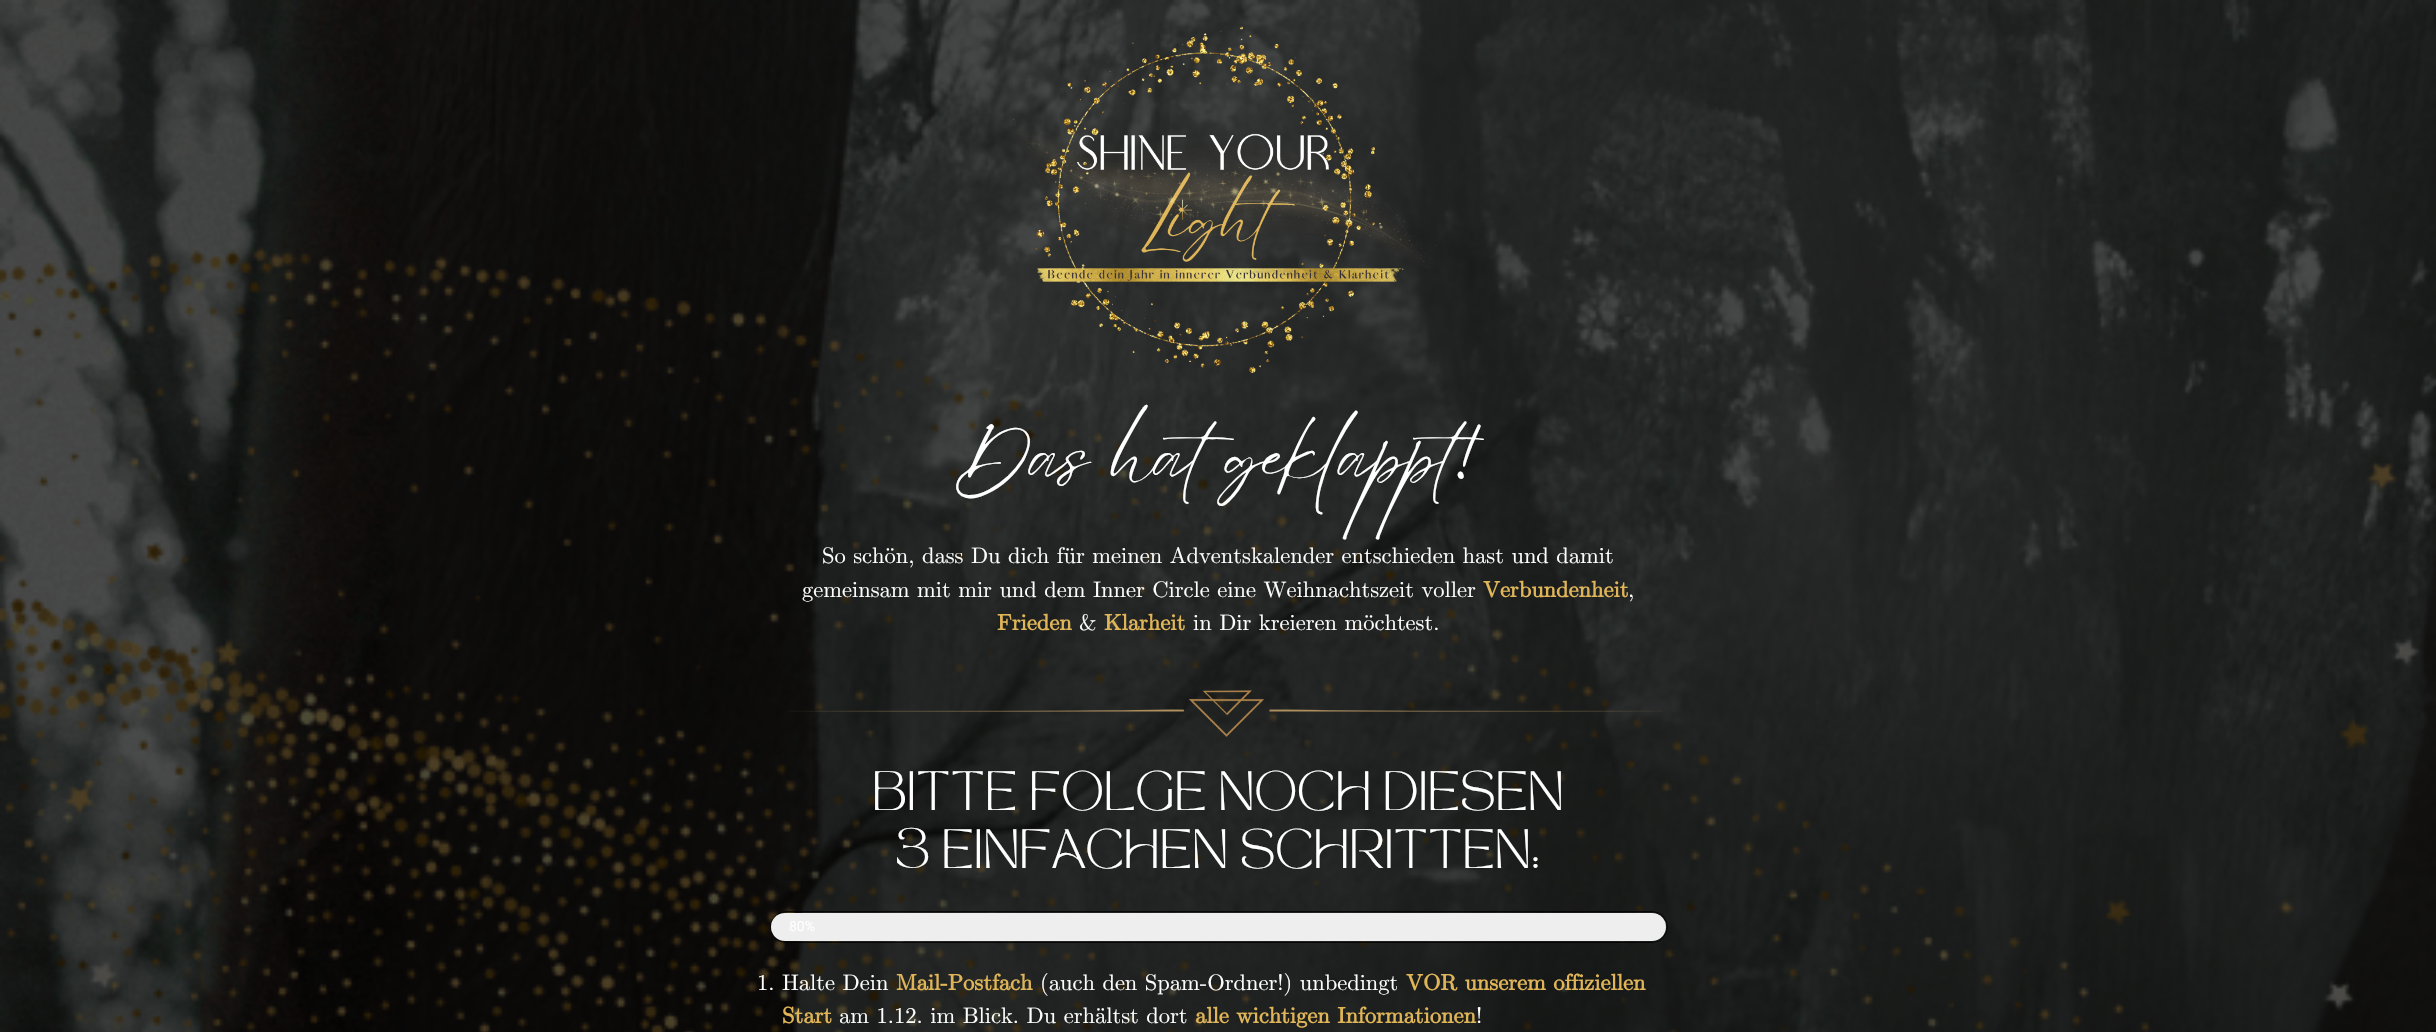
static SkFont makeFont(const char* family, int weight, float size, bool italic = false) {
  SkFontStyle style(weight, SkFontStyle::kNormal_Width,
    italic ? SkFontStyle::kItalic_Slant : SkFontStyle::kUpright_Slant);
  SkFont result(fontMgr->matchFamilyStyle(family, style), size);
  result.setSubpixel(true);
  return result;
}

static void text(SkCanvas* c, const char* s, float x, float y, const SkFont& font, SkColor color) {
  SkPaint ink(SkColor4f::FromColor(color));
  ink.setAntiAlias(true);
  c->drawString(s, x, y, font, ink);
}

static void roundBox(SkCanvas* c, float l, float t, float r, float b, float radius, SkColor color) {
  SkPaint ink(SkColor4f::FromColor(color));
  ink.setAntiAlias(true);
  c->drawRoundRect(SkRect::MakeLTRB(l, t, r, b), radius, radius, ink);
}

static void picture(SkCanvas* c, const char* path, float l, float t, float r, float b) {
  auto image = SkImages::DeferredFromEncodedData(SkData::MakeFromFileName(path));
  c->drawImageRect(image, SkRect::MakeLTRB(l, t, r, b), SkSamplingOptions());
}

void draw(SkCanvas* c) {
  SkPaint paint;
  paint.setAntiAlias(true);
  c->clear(0xffffffff);
  picture(c, "img_01.png", 0, 0, 2436, 1032);
  picture(c, "img_02.png", 1010, 26, 1438, 373);
  SkFont face1 = makeFont("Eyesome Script", 400, 73.75f);
  text(c, "Das hat geklappt!", 952, 475, face1, 0xffffffff);
  SkFont face2 = makeFont("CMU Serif", 400, 22.5f);
  text(c, "So schön, dass Du dich für meinen Adventskalender entschieden hast und damit", 822, 563, face2, 0xffffffff);
  text(c, "gemeinsam mit mir und dem Inner Circle eine Weihnachtszeit voller", 802, 597, face2, 0xffffffff);
  SkFont face3 = makeFont("CMU Serif", 700, 22.5f);
  text(c, "Verbundenheit", 1483, 597, face3, 0xffdfb558);
  text(c, ",", 1628, 597, face2, 0xffffffff);
  text(c, "Frieden", 997, 630, face3, 0xffdfb558);
  text(c, "&", 1079, 630, face2, 0xffffffff);
  text(c, "Klarheit", 1104, 630, face3, 0xffdfb558);
  text(c, "in Dir kreieren möchtest.", 1193, 630, face2, 0xffffffff);
  picture(c, "img_03.png", 787, 690, 1663, 737);
  SkFont face4 = makeFont("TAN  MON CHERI", 400, 38.75f);
  text(c, "BITTE FOLGE NOCH DIESEN", 872, 810, face4, 0xffffffff);
  text(c, "3 EINFACHEN SCHRITTEN:", 896, 868, face4, 0xffffffff);
  paint.setStyle(SkPaint::kStroke_Style);
  paint.setStrokeWidth(1);
  paint.setColor(0xd1020101);
  c->drawRoundRect(SkRect::MakeLTRB(770.5f, 911.5f, 1667.5f, 942.5f), 15.5f, 15.5f, paint);
  roundBox(c, 771, 913, 1666, 941, 14, 0xffeeeeee);
  SkFont face5 = makeFont("Roboto", 400, 14);
  text(c, "80%", 789, 931, face5, 0xffffffff);
  text(c, "1. Halte Dein", 757, 990, face2, 0xffffffff);
  text(c, "Mail-Postfach", 896, 990, face3, 0xffdfb558);
  text(c, "(auch den Spam-Ordner!) unbedingt", 1040, 990, face2, 0xffffffff);
  text(c, "VOR unserem offiziellen", 1406, 990, face3, 0xffdfb558);
  text(c, "Start", 782, 1023, face3, 0xffdfb558);
  text(c, "am 1.12. im Blick. Du erhältst dort", 839, 1023, face2, 0xffffffff);
  text(c, "alle wichtigen Informationen", 1195, 1023, face3, 0xffdfb558);
  text(c, "!", 1476, 1023, face2, 0xffffffff);
}
